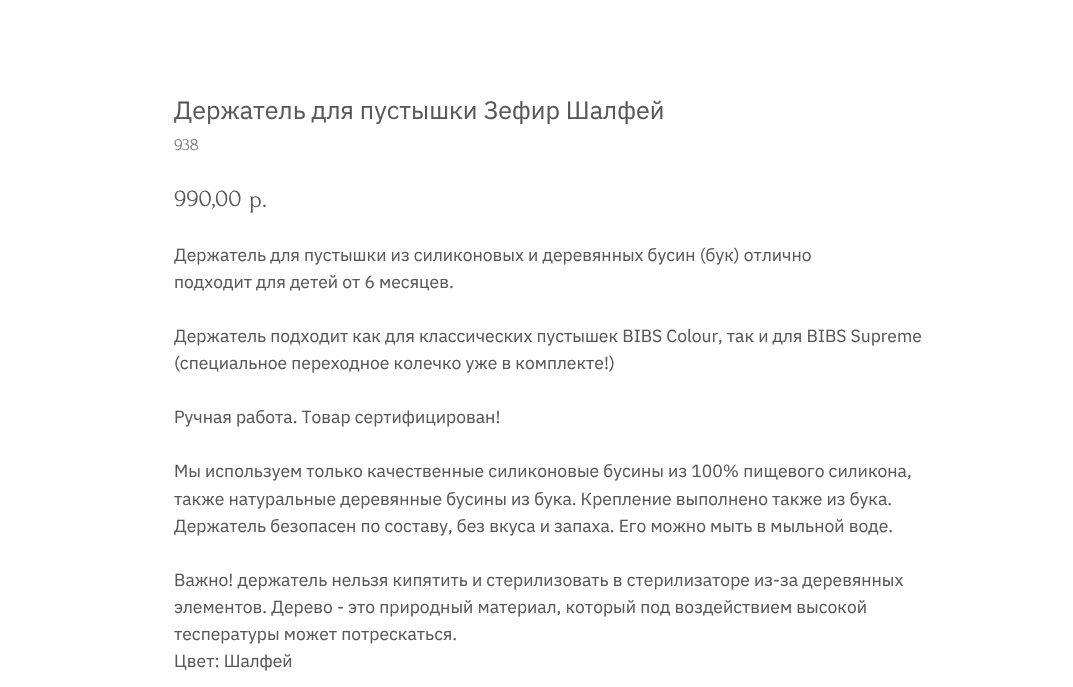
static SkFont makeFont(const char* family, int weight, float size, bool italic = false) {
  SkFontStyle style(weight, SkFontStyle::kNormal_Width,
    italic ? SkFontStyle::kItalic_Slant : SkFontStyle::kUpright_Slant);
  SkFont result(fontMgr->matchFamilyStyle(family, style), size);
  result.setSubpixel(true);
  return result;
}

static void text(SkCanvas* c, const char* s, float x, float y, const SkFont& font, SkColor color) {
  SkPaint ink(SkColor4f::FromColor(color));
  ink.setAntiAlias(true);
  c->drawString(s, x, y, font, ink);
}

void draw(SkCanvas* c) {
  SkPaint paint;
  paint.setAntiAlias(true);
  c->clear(0xffffffff);
  SkFont face1 = makeFont("IBM Plex Sans", 400, 25);
  text(c, "Держатель для пустышки Зефир Шалфей", 174, 119, face1, 0xff585858);
  SkFont face2 = makeFont("Forum", 400, 17.5f);
  text(c, "938", 174, 150, face2, 0xff777777);
  SkFont face3 = makeFont("Forum", 400, 25);
  text(c, "990,00", 174, 206, face3, 0xff585858);
  text(c, "р.", 249, 207, face3, 0xff585858);
  SkFont face4 = makeFont("IBM Plex Sans", 400, 17.5f);
  text(c, "Держатель для пустышки из силиконовых и деревянных бусин (бук) отлично", 174, 261, face4, 0xff585858);
  text(c, "подходит для детей от 6 месяцев.", 174, 288, face4, 0xff585858);
  text(c, "Держатель подходит как для классических пустышек BIBS Colour, так и для BIBS Supreme", 174, 342, face4, 0xff585858);
  text(c, "(специальное переходное колечко уже в комплекте!)", 174, 369, face4, 0xff585858);
  text(c, "Ручная работа. Товар сертифицирован!", 174, 423, face4, 0xff585858);
  text(c, "Мы используем только качественные силиконовые бусины из 100% пищевого силикона,", 174, 477, face4, 0xff585858);
  text(c, "также натуральные деревянные бусины из бука. Крепление выполнено также из бука.", 174, 505, face4, 0xff585858);
  text(c, "Держатель безопасен по составу, без вкуса и запаха. Его можно мыть в мыльной воде.", 174, 532, face4, 0xff585858);
  text(c, "Важно! держатель нельзя кипятить и стерилизовать в стерилизаторе из-за деревянных", 174, 586, face4, 0xff585858);
  text(c, "элементов. Дерево - это природный материал, который под воздействием высокой", 174, 613, face4, 0xff585858);
  text(c, "теспературы может потрескаться.", 174, 640, face4, 0xff585858);
  text(c, "Цвет: Шалфей", 174, 667, face4, 0xff585858);
}
